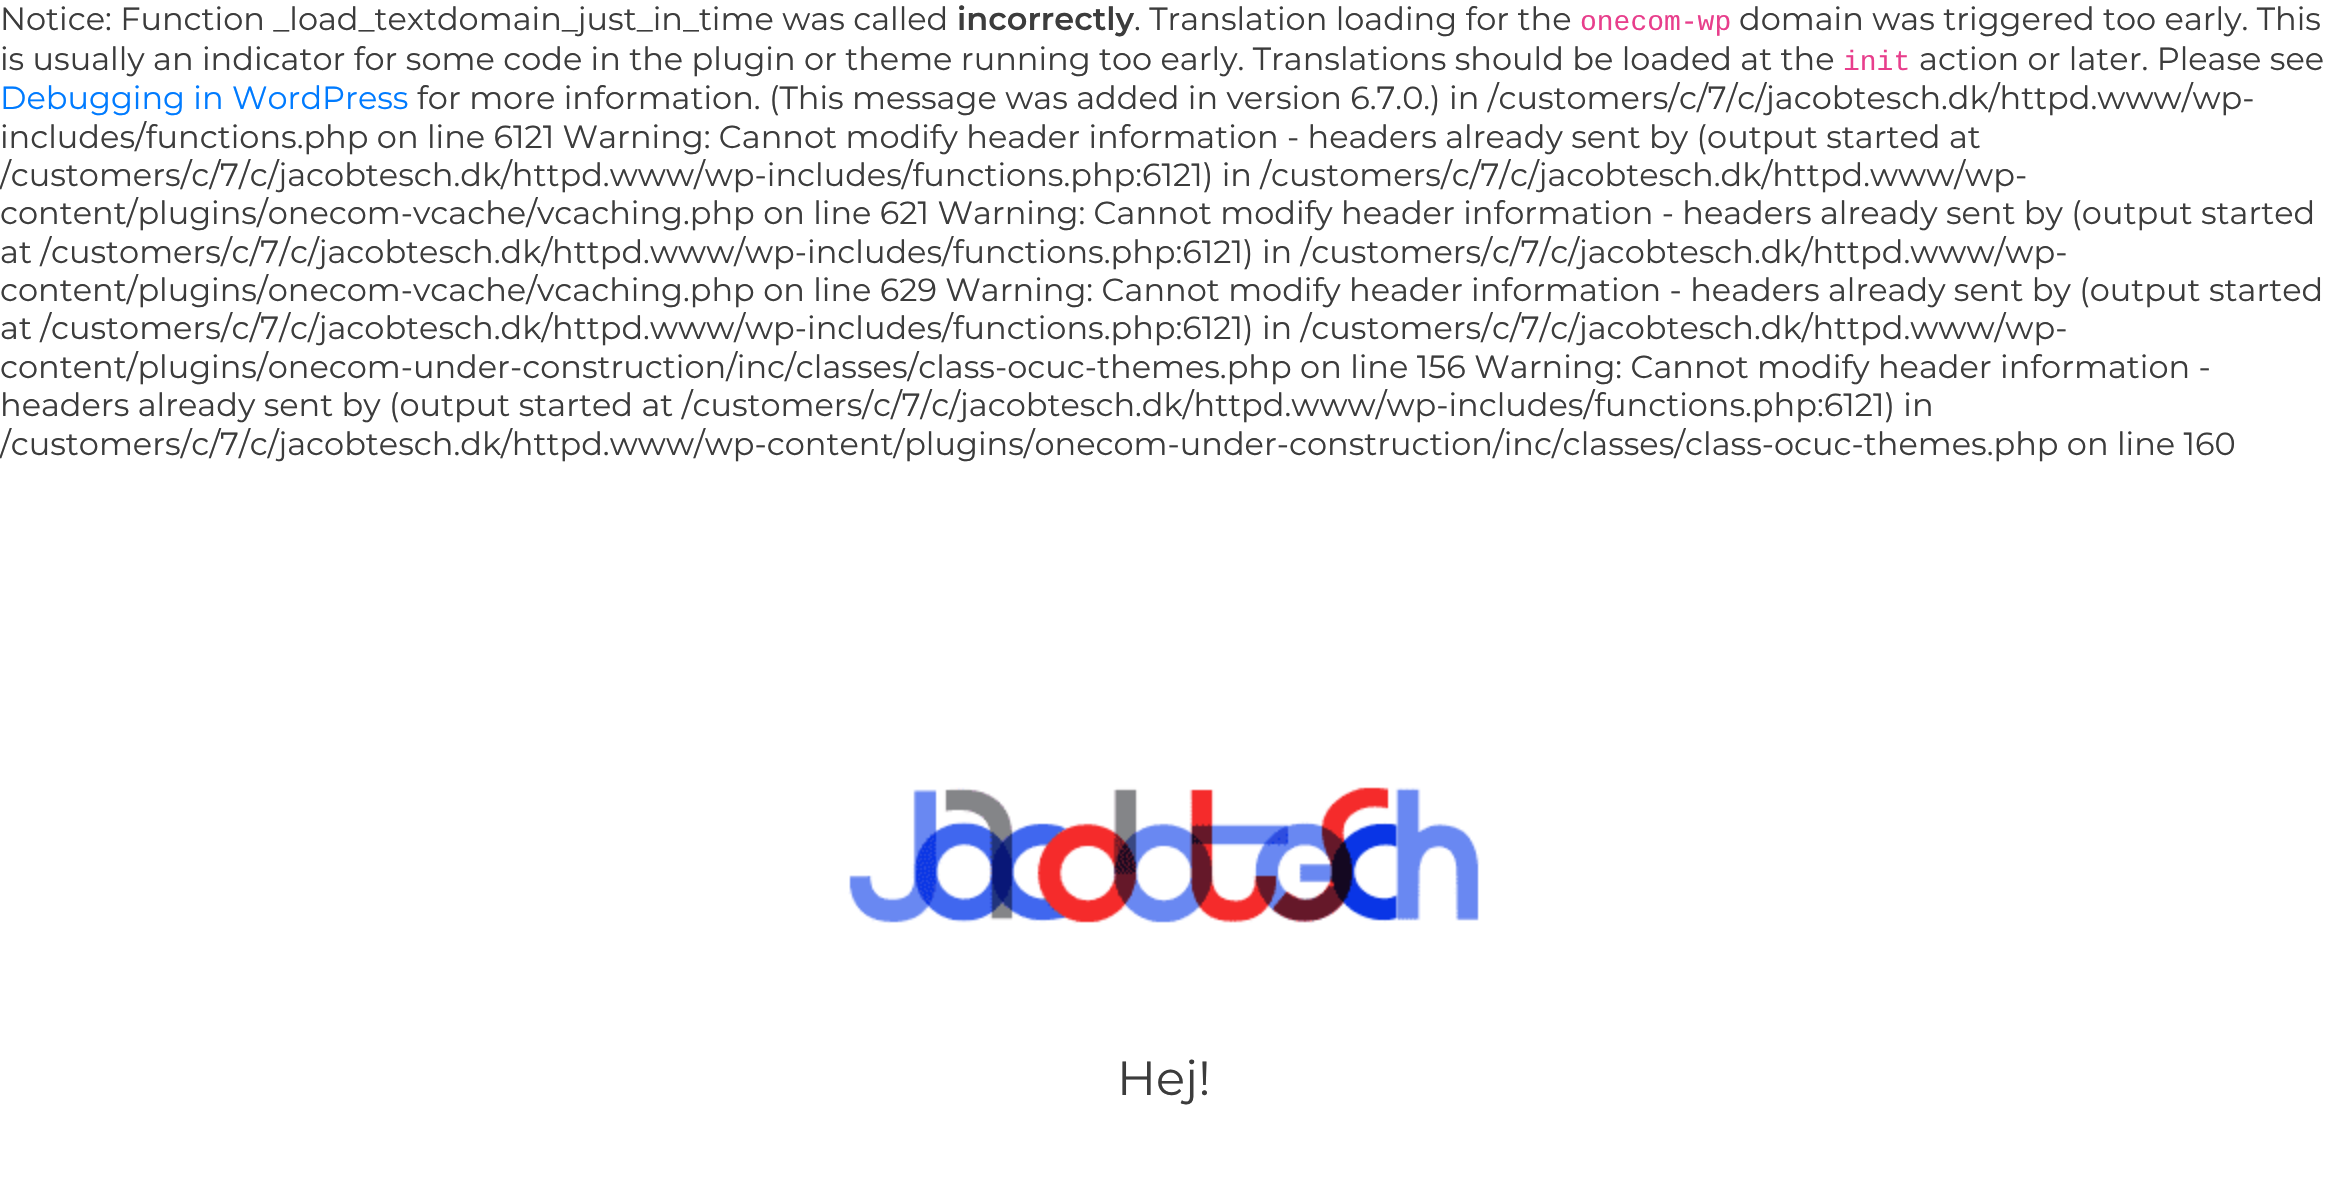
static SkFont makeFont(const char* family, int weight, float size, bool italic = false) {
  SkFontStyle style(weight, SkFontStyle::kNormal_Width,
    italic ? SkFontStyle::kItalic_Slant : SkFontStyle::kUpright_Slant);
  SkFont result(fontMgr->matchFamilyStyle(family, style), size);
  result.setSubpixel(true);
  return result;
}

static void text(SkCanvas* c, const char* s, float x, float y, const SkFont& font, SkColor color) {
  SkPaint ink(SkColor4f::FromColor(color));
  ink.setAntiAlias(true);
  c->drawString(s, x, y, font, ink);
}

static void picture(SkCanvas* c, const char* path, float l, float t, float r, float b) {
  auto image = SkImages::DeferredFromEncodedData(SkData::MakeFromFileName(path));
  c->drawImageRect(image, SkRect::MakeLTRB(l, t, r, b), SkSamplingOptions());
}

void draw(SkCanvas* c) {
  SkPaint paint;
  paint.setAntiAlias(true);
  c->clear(0xffffffff);
  SkFont face1 = makeFont("Montserrat", 400, 32);
  text(c, "Notice: Function _load_textdomain_just_in_time was called", 0, 30, face1, 0xff3c3c3c);
  SkFont face2 = makeFont("Montserrat", 600, 32);
  text(c, "incorrectly", 957, 30, face2, 0xff3c3c3c);
  text(c, ". Translation loading for the", 1134, 30, face1, 0xff3c3c3c);
  SkFont face3 = makeFont("Liberation Mono", 400, 28);
  text(c, "onecom-wp", 1580, 30, face3, 0xffe83e8c);
  text(c, "domain was triggered too early. This", 1739, 30, face1, 0xff3c3c3c);
  text(c, "is usually an indicator for some code in the plugin or theme running too early. Translations should be loaded at the", 0, 70, face1, 0xff3c3c3c);
  text(c, "init", 1843, 70, face3, 0xffe83e8c);
  text(c, "action or later. Please see", 1919, 70, face1, 0xff3c3c3c);
  text(c, "Debugging in WordPress", 0, 109, face1, 0xff007bff);
  text(c, "for more information. (This message was added in version 6.7.0.) in /customers/c/7/c/jacobtesch.dk/httpd.www/wp-", 417, 109, face1, 0xff3c3c3c);
  text(c, "includes/functions.php on line 6121 Warning: Cannot modify header information - headers already sent by (output started at", 0, 148, face1, 0xff3c3c3c);
  text(c, "/customers/c/7/c/jacobtesch.dk/httpd.www/wp-includes/functions.php:6121) in /customers/c/7/c/jacobtesch.dk/httpd.www/wp-", 0, 186, face1, 0xff3c3c3c);
  text(c, "content/plugins/onecom-vcache/vcaching.php on line 621 Warning: Cannot modify header information - headers already sent by (output started", 0, 224, face1, 0xff3c3c3c);
  text(c, "at /customers/c/7/c/jacobtesch.dk/httpd.www/wp-includes/functions.php:6121) in /customers/c/7/c/jacobtesch.dk/httpd.www/wp-", 0, 263, face1, 0xff3c3c3c);
  text(c, "content/plugins/onecom-vcache/vcaching.php on line 629 Warning: Cannot modify header information - headers already sent by (output started", 0, 301, face1, 0xff3c3c3c);
  text(c, "at /customers/c/7/c/jacobtesch.dk/httpd.www/wp-includes/functions.php:6121) in /customers/c/7/c/jacobtesch.dk/httpd.www/wp-", 0, 339, face1, 0xff3c3c3c);
  text(c, "content/plugins/onecom-under-construction/inc/classes/class-ocuc-themes.php on line 156 Warning: Cannot modify header information -", 0, 378, face1, 0xff3c3c3c);
  text(c, "headers already sent by (output started at /customers/c/7/c/jacobtesch.dk/httpd.www/wp-includes/functions.php:6121) in", 0, 416, face1, 0xff3c3c3c);
  text(c, "/customers/c/7/c/jacobtesch.dk/httpd.www/wp-content/plugins/onecom-under-construction/inc/classes/class-ocuc-themes.php on line 160", 0, 455, face1, 0xff3c3c3c);
  picture(c, "img_01.png", 848, 787, 1480, 924);
  SkFont face4 = makeFont("Montserrat", 400, 48);
  text(c, "Hej!", 1117, 1095, face4, 0xff3c3c3c);
}
